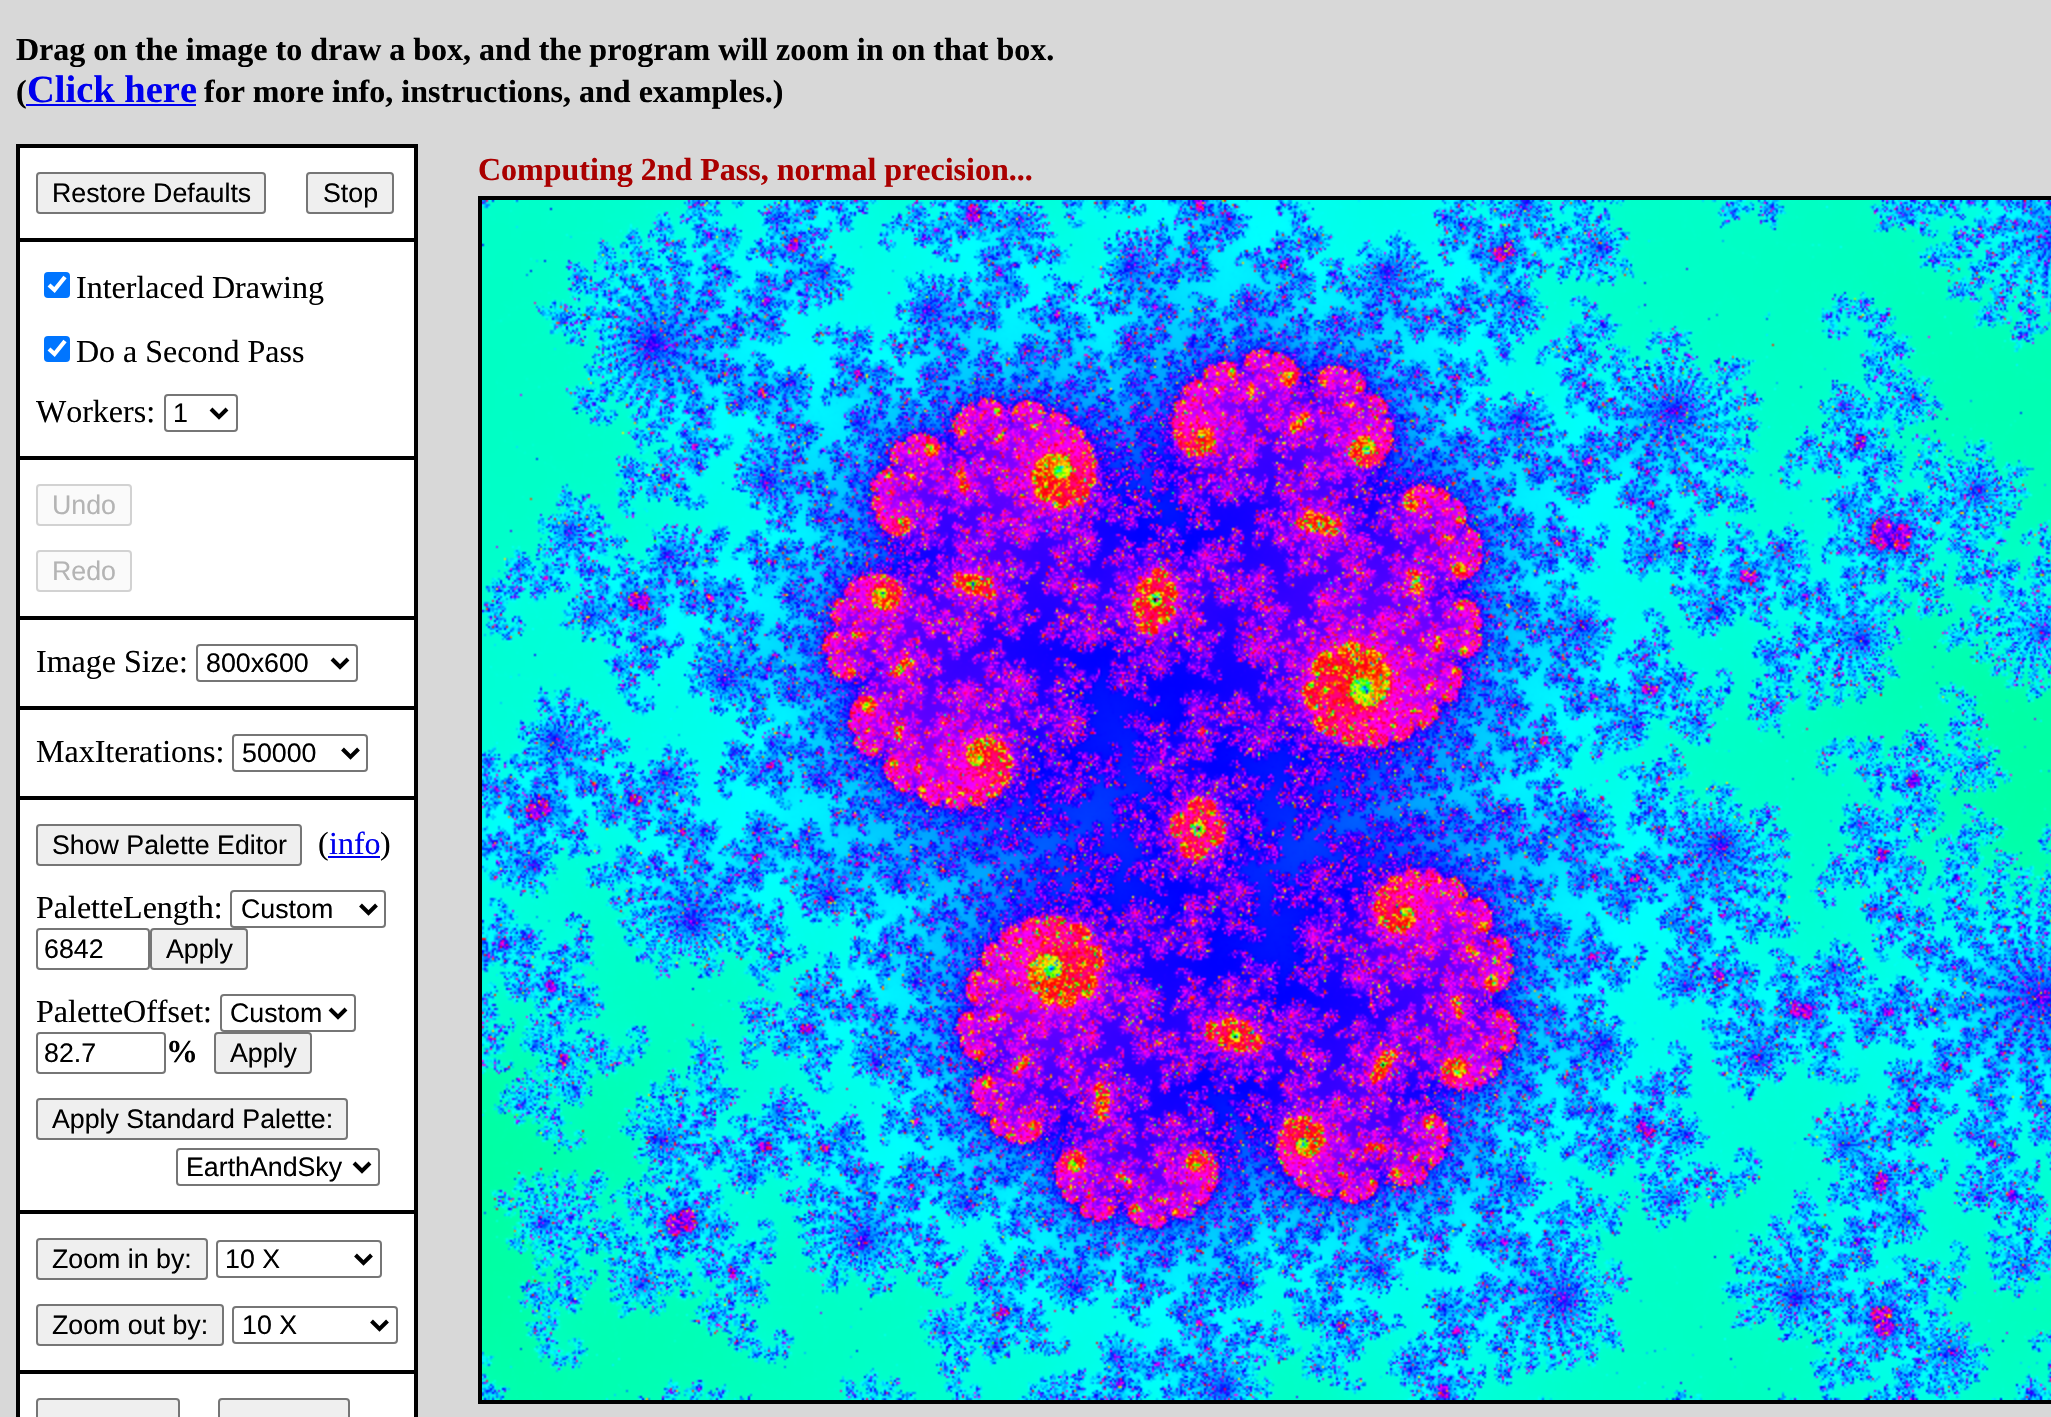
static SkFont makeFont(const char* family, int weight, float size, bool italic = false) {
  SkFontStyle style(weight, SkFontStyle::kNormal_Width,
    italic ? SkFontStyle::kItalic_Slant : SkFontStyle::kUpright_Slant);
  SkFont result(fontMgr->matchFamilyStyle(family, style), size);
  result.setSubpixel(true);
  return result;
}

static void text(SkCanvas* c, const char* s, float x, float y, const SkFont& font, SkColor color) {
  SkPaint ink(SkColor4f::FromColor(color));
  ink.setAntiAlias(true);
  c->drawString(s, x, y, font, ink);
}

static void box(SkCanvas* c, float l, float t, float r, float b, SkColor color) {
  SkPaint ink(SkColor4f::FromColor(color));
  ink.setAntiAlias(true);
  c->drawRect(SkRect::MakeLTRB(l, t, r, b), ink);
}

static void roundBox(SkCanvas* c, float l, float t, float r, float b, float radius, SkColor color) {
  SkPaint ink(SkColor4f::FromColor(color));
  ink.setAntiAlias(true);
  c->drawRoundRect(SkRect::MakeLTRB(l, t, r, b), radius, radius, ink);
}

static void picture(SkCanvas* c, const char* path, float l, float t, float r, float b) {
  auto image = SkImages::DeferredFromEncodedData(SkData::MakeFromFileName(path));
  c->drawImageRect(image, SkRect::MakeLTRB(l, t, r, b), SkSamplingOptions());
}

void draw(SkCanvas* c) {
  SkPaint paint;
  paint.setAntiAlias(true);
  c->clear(0xffd8d8d8);
  SkFont face1 = makeFont("Liberation Serif", 700, 32);
  text(c, "Drag on the image to draw a box, and the program will zoom in on that box.", 16, 60, face1, 0xff000000);
  text(c, "(", 16, 102, face1, 0xff000000);
  box(c, 26, 104, 196, 106, 0xff0000ee);
  SkFont face2 = makeFont("Liberation Serif", 700, 38.5f);
  text(c, "Click here", 27, 102, face2, 0xff0000ee);
  text(c, "for more info, instructions, and examples.)", 204, 102, face1, 0xff000000);
  text(c, "Computing 2nd Pass, normal precision...", 478, 180, face1, 0xffaa0000);
  paint.setStyle(SkPaint::kStroke_Style);
  paint.setStrokeWidth(4);
  paint.setColor(0xff000000);
  c->drawRect(SkRect::MakeLTRB(480, 198, 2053, 1402), paint);
  picture(c, "img_01.png", 482, 200, 2051, 1400);
  box(c, 20, 148, 414, 1417, 0xffffffff);
  box(c, 16, 144, 418, 148, 0xff000000);
  box(c, 414, 144, 418, 1417, 0xff000000);
  box(c, 16, 144, 20, 1417, 0xff000000);
  box(c, 20, 238, 414, 242, 0xff000000);
  paint.setStyle(SkPaint::kFill_Style);
  paint.setColor(0xffefefef);
  c->drawRoundRect(SkRect::MakeLTRB(37, 173, 265, 213), 3, 3, paint);
  paint.setStyle(SkPaint::kStroke_Style);
  paint.setStrokeWidth(2);
  paint.setColor(0xff767676);
  c->drawRoundRect(SkRect::MakeLTRB(37, 173, 265, 213), 3, 3, paint);
  SkFont face3 = makeFont("Liberation Sans", 400, 26.75f);
  text(c, "Restore Defaults", 52, 202, face3, 0xff000000);
  paint.setStyle(SkPaint::kFill_Style);
  paint.setColor(0xffefefef);
  c->drawRoundRect(SkRect::MakeLTRB(307, 173, 393, 213), 3, 3, paint);
  paint.setStyle(SkPaint::kStroke_Style);
  paint.setColor(0xff767676);
  c->drawRoundRect(SkRect::MakeLTRB(307, 173, 393, 213), 3, 3, paint);
  text(c, "Stop", 323, 202, face3, 0xff000000);
  box(c, 20, 456, 414, 460, 0xff000000);
  roundBox(c, 44, 272, 70, 298, 4, 0xff0075ff);
  paint.setStrokeWidth(4.2f);
  paint.setColor(0xffffffff);
  c->drawPath(SkPathBuilder().moveTo(49, 285).lineTo(54.5f, 290).lineTo(65, 277).detach(), paint);
  SkFont face4 = makeFont("Liberation Serif", 400, 32);
  text(c, "Interlaced Drawing", 76, 298, face4, 0xff000000);
  roundBox(c, 44, 336, 70, 362, 4, 0xff0075ff);
  c->drawPath(SkPathBuilder().moveTo(49, 349).lineTo(54.5f, 354).lineTo(65, 341).detach(), paint);
  text(c, "Do a Second Pass", 76, 362, face4, 0xff000000);
  text(c, "Workers:", 36, 422, face4, 0xff000000);
  paint.setStrokeWidth(2);
  paint.setColor(0xff767676);
  c->drawRoundRect(SkRect::MakeLTRB(165, 395, 237, 431), 3, 3, paint);
  paint.setStrokeWidth(4);
  paint.setColor(0xff000000);
  c->drawPath(SkPathBuilder().moveTo(211, 409).lineTo(219, 417).lineTo(227, 409).detach(), paint);
  text(c, "1", 173, 422, face3, 0xff000000);
  box(c, 20, 616, 414, 620, 0xff000000);
  paint.setStyle(SkPaint::kFill_Style);
  paint.setColor(0xfffafafa);
  c->drawRoundRect(SkRect::MakeLTRB(37, 485, 131, 525), 3, 3, paint);
  paint.setStyle(SkPaint::kStroke_Style);
  paint.setStrokeWidth(2);
  paint.setColor(0xffd2d2d2);
  c->drawRoundRect(SkRect::MakeLTRB(37, 485, 131, 525), 3, 3, paint);
  text(c, "Undo", 52, 514, face3, 0xffb4b4b4);
  paint.setStyle(SkPaint::kFill_Style);
  paint.setColor(0xfffafafa);
  c->drawRoundRect(SkRect::MakeLTRB(37, 551, 131, 591), 3, 3, paint);
  paint.setStyle(SkPaint::kStroke_Style);
  paint.setColor(0xffd2d2d2);
  c->drawRoundRect(SkRect::MakeLTRB(37, 551, 131, 591), 3, 3, paint);
  text(c, "Redo", 52, 580, face3, 0xffb4b4b4);
  box(c, 20, 706, 414, 710, 0xff000000);
  text(c, "Image Size:", 36, 672, face4, 0xff000000);
  paint.setColor(0xff767676);
  c->drawRoundRect(SkRect::MakeLTRB(197, 645, 357, 681), 3, 3, paint);
  paint.setStrokeWidth(4);
  paint.setColor(0xff000000);
  c->drawPath(SkPathBuilder().moveTo(332, 659).lineTo(340, 667).lineTo(348, 659).detach(), paint);
  text(c, "800x600", 206, 672, face3, 0xff000000);
  box(c, 20, 796, 414, 800, 0xff000000);
  text(c, "MaxIterations:", 36, 762, face4, 0xff000000);
  paint.setStrokeWidth(2);
  paint.setColor(0xff767676);
  c->drawRoundRect(SkRect::MakeLTRB(233, 735, 367, 771), 3, 3, paint);
  paint.setStrokeWidth(4);
  paint.setColor(0xff000000);
  c->drawPath(SkPathBuilder().moveTo(342.5f, 749).lineTo(350.5f, 757).lineTo(358.5f, 749).detach(), paint);
  text(c, "50000", 242, 762, face3, 0xff000000);
  box(c, 20, 1210, 414, 1214, 0xff000000);
  paint.setStyle(SkPaint::kFill_Style);
  paint.setColor(0xffefefef);
  c->drawRoundRect(SkRect::MakeLTRB(37, 825, 301, 865), 3, 3, paint);
  paint.setStyle(SkPaint::kStroke_Style);
  paint.setStrokeWidth(2);
  paint.setColor(0xff767676);
  c->drawRoundRect(SkRect::MakeLTRB(37, 825, 301, 865), 3, 3, paint);
  text(c, "Show Palette Editor", 52, 854, face3, 0xff000000);
  text(c, "(", 318, 854, face4, 0xff000000);
  text(c, "info", 329, 854, face4, 0xff0000ee);
  box(c, 328, 856, 380, 858, 0xff0000ee);
  text(c, ")", 380, 854, face4, 0xff000000);
  text(c, "PaletteLength:", 36, 918, face4, 0xff000000);
  c->drawRoundRect(SkRect::MakeLTRB(231, 891, 385, 927), 3, 3, paint);
  paint.setStrokeWidth(4);
  paint.setColor(0xff000000);
  c->drawPath(SkPathBuilder().moveTo(360.5f, 905).lineTo(368.5f, 913).lineTo(376.5f, 905).detach(), paint);
  text(c, "Custom", 241, 918, face3, 0xff000000);
  paint.setStrokeWidth(2);
  paint.setColor(0xff767676);
  c->drawRoundRect(SkRect::MakeLTRB(37, 929, 149, 969), 3, 3, paint);
  text(c, "6842", 44, 958, face3, 0xff000000);
  paint.setStyle(SkPaint::kFill_Style);
  paint.setColor(0xffefefef);
  c->drawRoundRect(SkRect::MakeLTRB(151, 929, 247, 969), 3, 3, paint);
  paint.setStyle(SkPaint::kStroke_Style);
  paint.setColor(0xff767676);
  c->drawRoundRect(SkRect::MakeLTRB(151, 929, 247, 969), 3, 3, paint);
  text(c, "Apply", 166, 958, face3, 0xff000000);
  text(c, "PaletteOffset:", 36, 1022, face4, 0xff000000);
  c->drawRoundRect(SkRect::MakeLTRB(221, 995, 355, 1031), 3, 3, paint);
  paint.setStrokeWidth(4);
  paint.setColor(0xff000000);
  c->drawPath(SkPathBuilder().moveTo(330, 1009).lineTo(338, 1017).lineTo(346, 1009).detach(), paint);
  text(c, "Custom", 230, 1022, face3, 0xff000000);
  paint.setStrokeWidth(2);
  paint.setColor(0xff767676);
  c->drawRoundRect(SkRect::MakeLTRB(37, 1033, 165, 1073), 3, 3, paint);
  text(c, "82.7", 44, 1062, face3, 0xff000000);
  text(c, "%", 166, 1062, face1, 0xff000000);
  paint.setStyle(SkPaint::kFill_Style);
  paint.setColor(0xffefefef);
  c->drawRoundRect(SkRect::MakeLTRB(215, 1033, 311, 1073), 3, 3, paint);
  paint.setStyle(SkPaint::kStroke_Style);
  paint.setColor(0xff767676);
  c->drawRoundRect(SkRect::MakeLTRB(215, 1033, 311, 1073), 3, 3, paint);
  text(c, "Apply", 230, 1062, face3, 0xff000000);
  paint.setStyle(SkPaint::kFill_Style);
  paint.setColor(0xffefefef);
  c->drawRoundRect(SkRect::MakeLTRB(37, 1099, 347, 1139), 3, 3, paint);
  paint.setStyle(SkPaint::kStroke_Style);
  paint.setColor(0xff767676);
  c->drawRoundRect(SkRect::MakeLTRB(37, 1099, 347, 1139), 3, 3, paint);
  text(c, "Apply Standard Palette:", 52, 1128, face3, 0xff000000);
  c->drawRoundRect(SkRect::MakeLTRB(177, 1149, 379, 1185), 3, 3, paint);
  paint.setStrokeWidth(4);
  paint.setColor(0xff000000);
  c->drawPath(SkPathBuilder().moveTo(354, 1163).lineTo(362, 1171).lineTo(370, 1163).detach(), paint);
  text(c, "EarthAndSky", 186, 1176, face3, 0xff000000);
  box(c, 20, 1370, 414, 1374, 0xff000000);
  paint.setStyle(SkPaint::kFill_Style);
  paint.setColor(0xffefefef);
  c->drawRoundRect(SkRect::MakeLTRB(37, 1239, 207, 1279), 3, 3, paint);
  paint.setStyle(SkPaint::kStroke_Style);
  paint.setStrokeWidth(2);
  paint.setColor(0xff767676);
  c->drawRoundRect(SkRect::MakeLTRB(37, 1239, 207, 1279), 3, 3, paint);
  text(c, "Zoom in by:", 52, 1268, face3, 0xff000000);
  c->drawRoundRect(SkRect::MakeLTRB(217, 1241, 381, 1277), 3, 3, paint);
  paint.setStrokeWidth(4);
  paint.setColor(0xff000000);
  c->drawPath(SkPathBuilder().moveTo(355.5f, 1255).lineTo(363.5f, 1263).lineTo(371.5f, 1255).detach(), paint);
  text(c, "10 X", 225, 1268, face3, 0xff000000);
  paint.setStyle(SkPaint::kFill_Style);
  paint.setColor(0xffefefef);
  c->drawRoundRect(SkRect::MakeLTRB(37, 1305, 223, 1345), 3, 3, paint);
  paint.setStyle(SkPaint::kStroke_Style);
  paint.setStrokeWidth(2);
  paint.setColor(0xff767676);
  c->drawRoundRect(SkRect::MakeLTRB(37, 1305, 223, 1345), 3, 3, paint);
  text(c, "Zoom out by:", 52, 1334, face3, 0xff000000);
  c->drawRoundRect(SkRect::MakeLTRB(233, 1307, 397, 1343), 3, 3, paint);
  paint.setStrokeWidth(4);
  paint.setColor(0xff000000);
  c->drawPath(SkPathBuilder().moveTo(371.5f, 1321).lineTo(379.5f, 1329).lineTo(387.5f, 1321).detach(), paint);
  text(c, "10 X", 242, 1334, face3, 0xff000000);
  paint.setStyle(SkPaint::kFill_Style);
  paint.setColor(0xffefefef);
  c->drawRoundRect(SkRect::MakeLTRB(37, 1399, 179, 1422), 3, 3, paint);
  paint.setStyle(SkPaint::kStroke_Style);
  paint.setStrokeWidth(2);
  paint.setColor(0xff767676);
  c->drawRoundRect(SkRect::MakeLTRB(37, 1399, 179, 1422), 3, 3, paint);
  paint.setStyle(SkPaint::kFill_Style);
  paint.setColor(0xffefefef);
  c->drawRoundRect(SkRect::MakeLTRB(219, 1399, 349, 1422), 3, 3, paint);
  paint.setStyle(SkPaint::kStroke_Style);
  paint.setColor(0xff767676);
  c->drawRoundRect(SkRect::MakeLTRB(219, 1399, 349, 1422), 3, 3, paint);
}
